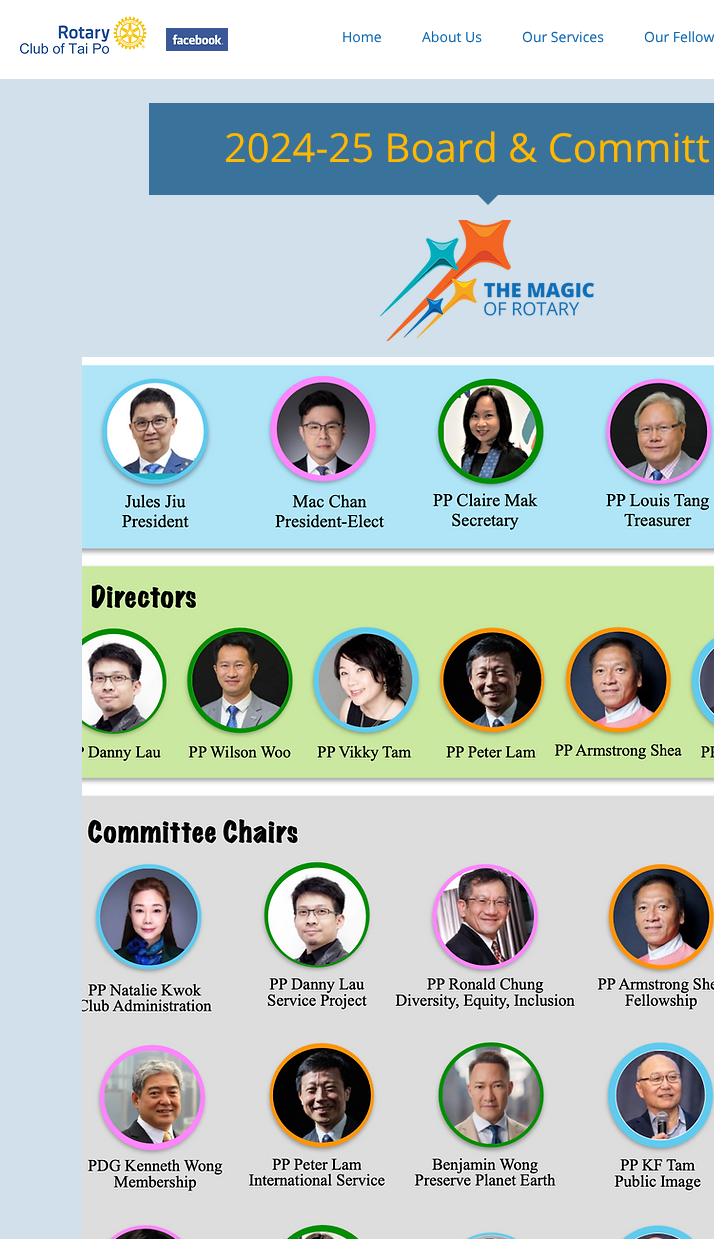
static SkFont makeFont(const char* family, int weight, float size, bool italic = false) {
  SkFontStyle style(weight, SkFontStyle::kNormal_Width,
    italic ? SkFontStyle::kItalic_Slant : SkFontStyle::kUpright_Slant);
  SkFont result(fontMgr->matchFamilyStyle(family, style), size);
  result.setSubpixel(true);
  return result;
}

static void text(SkCanvas* c, const char* s, float x, float y, const SkFont& font, SkColor color) {
  SkPaint ink(SkColor4f::FromColor(color));
  ink.setAntiAlias(true);
  c->drawString(s, x, y, font, ink);
}

static void box(SkCanvas* c, float l, float t, float r, float b, SkColor color) {
  SkPaint ink(SkColor4f::FromColor(color));
  ink.setAntiAlias(true);
  c->drawRect(SkRect::MakeLTRB(l, t, r, b), ink);
}

static void picture(SkCanvas* c, const char* path, float l, float t, float r, float b) {
  auto image = SkImages::DeferredFromEncodedData(SkData::MakeFromFileName(path));
  c->drawImageRect(image, SkRect::MakeLTRB(l, t, r, b), SkSamplingOptions());
}

void draw(SkCanvas* c) {
  SkPaint paint;
  paint.setAntiAlias(true);
  c->clear(0xffd1e0eb);
  box(c, 0, 0, 714, 79, 0xffffffff);
  picture(c, "img_01.png", 20, 16, 147, 54);
  picture(c, "img_02.png", 166, 28, 228, 51);
  SkFont face1 = makeFont("Open Sans", 400, 14);
  text(c, "Home", 342, 42, face1, 0xff0966b3);
  text(c, "About Us", 422, 42, face1, 0xff0966b3);
  text(c, "Our Services", 522, 42, face1, 0xff0966b3);
  text(c, "Our Fellow", 644, 42, face1, 0xff0966b3);
  box(c, 149, 103, 714, 195, 0xff39729b);
  SkFont face2 = makeFont("Open Sans", 400, 40);
  text(c, "2024-25 Board & Committ", 224, 162, face2, 0xffffb700);
  paint.setColor(0xff39729b);
  c->drawPath(SkPathBuilder().moveTo(478, 195).lineTo(498, 195).lineTo(488, 205).close().detach(), paint);
  picture(c, "img_03.png", 380, 220, 594, 341);
  picture(c, "img_04.png", 82, 357, 714, 1239);
}
